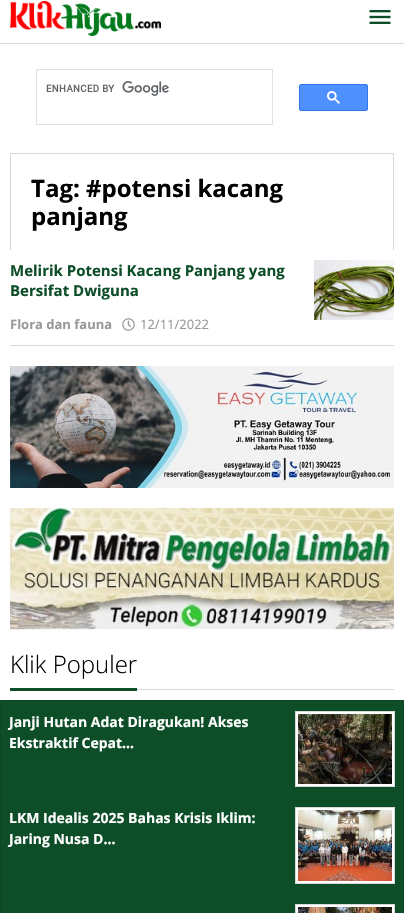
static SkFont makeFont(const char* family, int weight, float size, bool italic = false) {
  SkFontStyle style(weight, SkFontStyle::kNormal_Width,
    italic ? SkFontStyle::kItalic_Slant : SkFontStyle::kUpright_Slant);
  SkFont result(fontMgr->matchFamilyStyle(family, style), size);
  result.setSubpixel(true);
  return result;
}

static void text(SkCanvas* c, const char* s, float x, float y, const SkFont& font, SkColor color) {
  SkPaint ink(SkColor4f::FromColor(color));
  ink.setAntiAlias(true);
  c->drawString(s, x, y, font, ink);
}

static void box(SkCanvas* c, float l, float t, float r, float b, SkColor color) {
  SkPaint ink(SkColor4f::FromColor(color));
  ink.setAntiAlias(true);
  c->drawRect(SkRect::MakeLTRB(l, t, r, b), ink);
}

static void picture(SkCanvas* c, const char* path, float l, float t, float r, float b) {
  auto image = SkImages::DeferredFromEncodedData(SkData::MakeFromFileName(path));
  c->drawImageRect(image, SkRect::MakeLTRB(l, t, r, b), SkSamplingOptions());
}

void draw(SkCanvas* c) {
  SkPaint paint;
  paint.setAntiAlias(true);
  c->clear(0xffffffff);
  box(c, 0, 43, 404, 44, 0xffd9d9d9);
  picture(c, "img_01.png", 10, 1, 161, 36);
  picture(c, "img_02.png", 369, 10, 391, 24);
  paint.setStyle(SkPaint::kStroke_Style);
  paint.setStrokeWidth(1);
  paint.setColor(0xffdfe1e5);
  c->drawRect(SkRect::MakeLTRB(36.5f, 69.5f, 272.5f, 124.5f), paint);
  picture(c, "img_03.png", 46, 81, 169, 96);
  paint.setStyle(SkPaint::kFill_Style);
  paint.setColor(0xff4d90fe);
  c->drawRoundRect(SkRect::MakeLTRB(299.5f, 84.5f, 367.5f, 110.5f), 1.5f, 1.5f, paint);
  paint.setStyle(SkPaint::kStroke_Style);
  paint.setColor(0xff3079ed);
  c->drawRoundRect(SkRect::MakeLTRB(299.5f, 84.5f, 367.5f, 110.5f), 1.5f, 1.5f, paint);
  picture(c, "img_04.png", 327, 91, 340, 104);
  paint.setColor(0xffd9d9d9);
  c->drawRect(SkRect::MakeLTRB(10.5f, 153.5f, 393.5f, 250.5f), paint);
  SkFont face1 = makeFont("Open Sans", 700, 24);
  text(c, "Tag: #potensi kacang", 31, 197, face1, 0xff000000);
  text(c, "panjang", 31, 225, face1, 0xff000000);
  box(c, 10, 250, 394, 251, 0xffffffff);
  box(c, 10, 345, 394, 346, 0xffd9d9d9);
  SkFont face2 = makeFont("Open Sans", 700, 15);
  text(c, "Melirik Potensi Kacang Panjang yang", 10, 276, face2, 0xff0d4e29);
  text(c, "Bersifat Dwiguna", 10, 296, face2, 0xff0d4e29);
  SkFont face3 = makeFont("Open Sans", 700, 13);
  text(c, "Flora dan fauna", 10, 329, face3, 0xff999999);
  picture(c, "img_05.png", 122, 318, 135, 331);
  SkFont face4 = makeFont("Open Sans", 400, 13);
  text(c, "12/11/2022", 140, 329, face4, 0xff999999);
  picture(c, "img_06.png", 314, 260, 394, 320);
  picture(c, "img_07.png", 10, 366, 394, 488);
  picture(c, "img_08.png", 10, 508, 394, 630);
  box(c, 137, 689, 394, 690, 0xffd9d9d9);
  box(c, 10, 688, 137, 691, 0xff0d4e29);
  SkFont face5 = makeFont("Open Sans", 300, 24);
  text(c, "Klik Populer", 10, 673, face5, 0xff000000);
  paint.setStyle(SkPaint::kFill_Style);
  paint.setColor(0xff0d4e29);
  c->drawRect(SkRect::MakeLTRB(0.5f, 700.5f, 403.5f, 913.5f), paint);
  paint.setStyle(SkPaint::kStroke_Style);
  paint.setColor(0xff0c4625);
  c->drawRect(SkRect::MakeLTRB(0.5f, 700.5f, 403.5f, 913.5f), paint);
  SkFont face6 = makeFont("Open Sans", 700, 14);
  text(c, "Janji Hutan Adat Diragukan! Akses", 9, 727, face6, 0xffffffff);
  paint.setStyle(SkPaint::kFill_Style);
  paint.setColor(0xffffffff);
  c->drawRect(SkRect::MakeLTRB(295.5f, 711.5f, 394.5f, 786.5f), paint);
  paint.setStyle(SkPaint::kStroke_Style);
  paint.setColor(0xffd9d9d9);
  c->drawRect(SkRect::MakeLTRB(295.5f, 711.5f, 394.5f, 786.5f), paint);
  picture(c, "img_09.png", 298, 714, 392, 784);
  text(c, "Ekstraktif Cepat…", 9, 748, face6, 0xffffffff);
  text(c, "LKM Idealis 2025 Bahas Krisis Iklim:", 9, 823, face6, 0xffffffff);
  paint.setStyle(SkPaint::kFill_Style);
  paint.setColor(0xffffffff);
  c->drawRect(SkRect::MakeLTRB(295.5f, 807.5f, 394.5f, 883.5f), paint);
  paint.setStyle(SkPaint::kStroke_Style);
  paint.setColor(0xffd9d9d9);
  c->drawRect(SkRect::MakeLTRB(295.5f, 807.5f, 394.5f, 883.5f), paint);
  picture(c, "img_10.png", 298, 810, 392, 881);
  text(c, "Jaring Nusa D…", 9, 844, face6, 0xffffffff);
  paint.setStyle(SkPaint::kFill_Style);
  paint.setColor(0xffffffff);
  c->drawRect(SkRect::MakeLTRB(295.5f, 904.5f, 394.5f, 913.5f), paint);
  paint.setStyle(SkPaint::kStroke_Style);
  paint.setColor(0xffd9d9d9);
  c->drawRect(SkRect::MakeLTRB(295.5f, 904.5f, 394.5f, 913.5f), paint);
  picture(c, "img_11.png", 298, 907, 392, 913);
}
